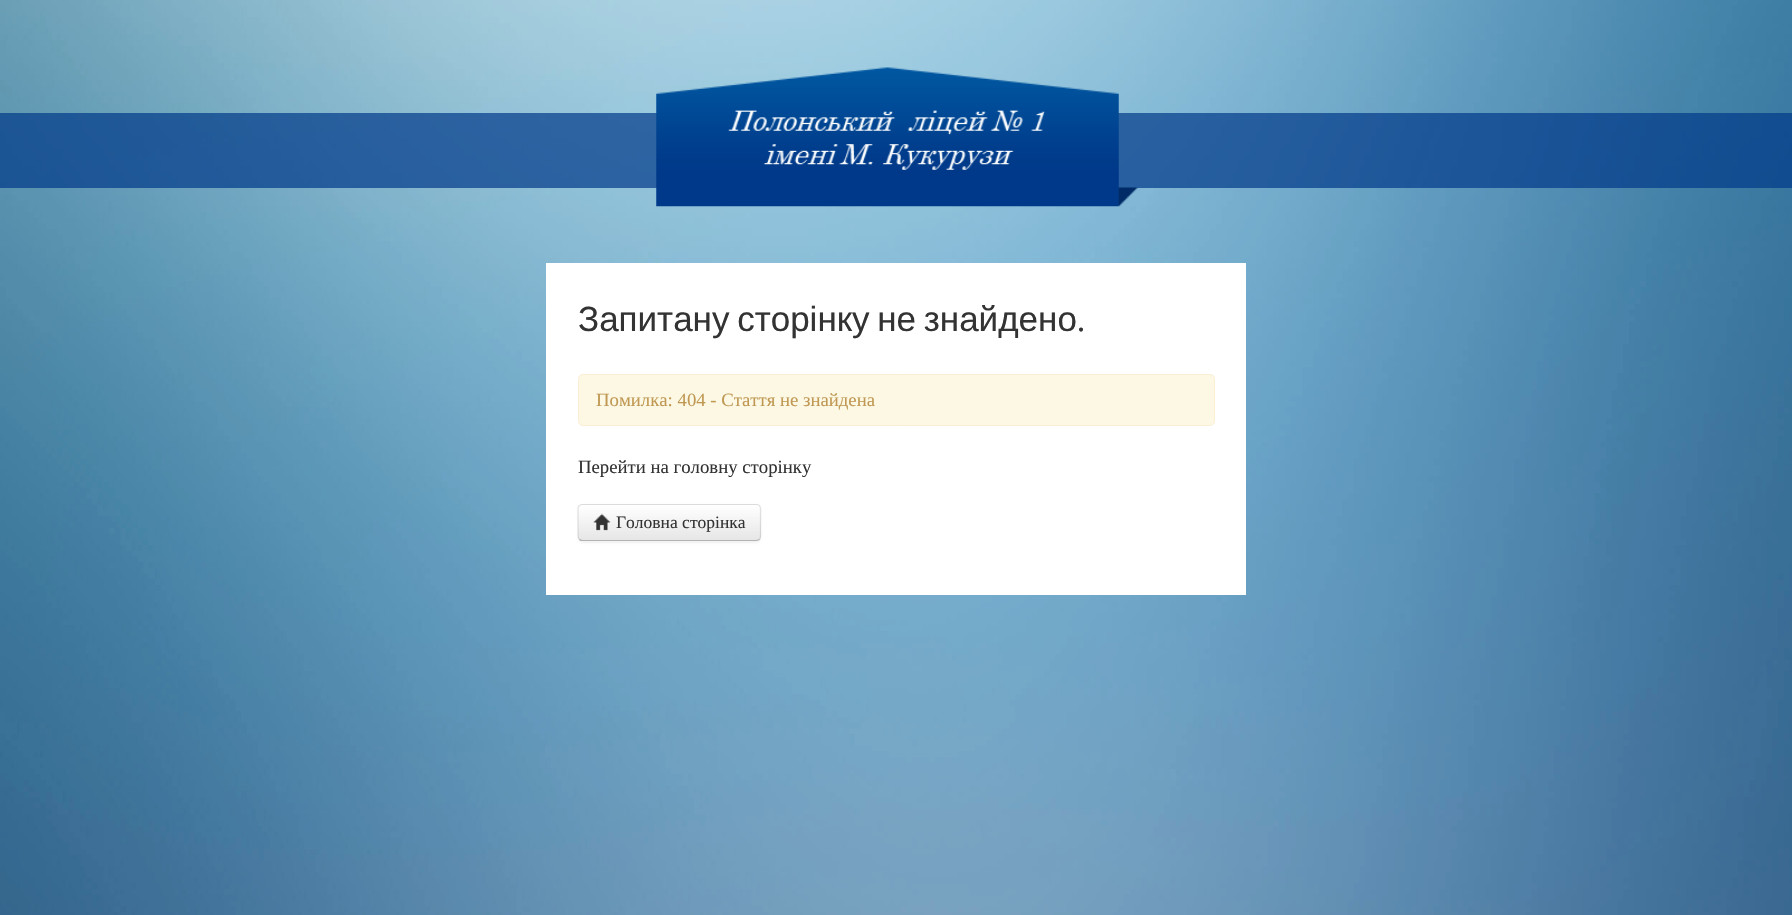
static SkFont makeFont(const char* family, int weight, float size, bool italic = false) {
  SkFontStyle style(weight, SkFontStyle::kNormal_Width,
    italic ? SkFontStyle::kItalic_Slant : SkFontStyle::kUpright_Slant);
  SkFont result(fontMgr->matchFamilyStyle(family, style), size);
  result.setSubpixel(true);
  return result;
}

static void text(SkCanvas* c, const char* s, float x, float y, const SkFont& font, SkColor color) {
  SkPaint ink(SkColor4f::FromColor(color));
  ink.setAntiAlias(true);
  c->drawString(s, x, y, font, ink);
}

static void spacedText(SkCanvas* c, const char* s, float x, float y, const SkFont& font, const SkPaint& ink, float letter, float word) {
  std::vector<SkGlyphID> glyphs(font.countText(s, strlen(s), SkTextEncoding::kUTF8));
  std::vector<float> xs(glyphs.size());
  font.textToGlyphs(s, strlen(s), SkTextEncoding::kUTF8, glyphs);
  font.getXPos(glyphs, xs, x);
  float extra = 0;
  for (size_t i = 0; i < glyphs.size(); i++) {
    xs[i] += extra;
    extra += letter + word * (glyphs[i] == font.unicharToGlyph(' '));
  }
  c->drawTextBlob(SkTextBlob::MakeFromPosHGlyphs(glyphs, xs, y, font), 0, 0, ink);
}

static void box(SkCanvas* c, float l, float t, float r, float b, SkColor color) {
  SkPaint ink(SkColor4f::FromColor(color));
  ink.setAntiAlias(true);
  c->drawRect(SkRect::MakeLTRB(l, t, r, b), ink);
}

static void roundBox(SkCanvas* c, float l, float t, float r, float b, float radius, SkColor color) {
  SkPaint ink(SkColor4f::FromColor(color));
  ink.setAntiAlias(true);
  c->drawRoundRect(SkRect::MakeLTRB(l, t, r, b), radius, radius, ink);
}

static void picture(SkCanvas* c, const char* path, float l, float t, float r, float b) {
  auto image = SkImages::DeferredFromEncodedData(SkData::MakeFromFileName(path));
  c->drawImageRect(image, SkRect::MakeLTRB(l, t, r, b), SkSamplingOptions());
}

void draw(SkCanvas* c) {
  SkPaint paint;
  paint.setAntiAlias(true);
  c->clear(0xffffffff);
  picture(c, "img_01.png", 0, 0, 1792, 915);
  box(c, 0, 113, 1792, 188, 0xb3003989);
  picture(c, "img_02.png", 656, 67, 1138, 207);
  picture(c, "img_03.png", 728, 110, 1045, 170);
  box(c, 546, 263, 1246, 595, 0xffffffff);
  SkFont face1 = makeFont("Liberation Sans", 400, 35);
  paint.setColor(0xff333333);
  spacedText(c, "Запитану сторінку не знайдено", 578, 331, face1, paint, 0, -2);
  SkFont face2 = makeFont("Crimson", 400, 35);
  text(c, ".", 1077, 331, face2, 0xff333333);
  paint.setColor(0xfffcf8e3);
  c->drawRoundRect(SkRect::MakeLTRB(578.5f, 374.5f, 1214.5f, 425.5f), 4.5f, 4.5f, paint);
  paint.setStyle(SkPaint::kStroke_Style);
  paint.setStrokeWidth(1);
  paint.setColor(0xfffbeed5);
  c->drawRoundRect(SkRect::MakeLTRB(578.5f, 374.5f, 1214.5f, 425.5f), 4.5f, 4.5f, paint);
  SkFont face3 = makeFont("Liberation Serif", 400, 18.75f);
  text(c, "Помилка: 404 - Стаття не знайдена", 596, 406, face3, 0xffc09853);
  text(c, "Перейти на головну сторінку", 578, 473, face3, 0xff333333);
  paint.setStyle(SkPaint::kFill_Style);
  paint.setColor(0x0d000000);
  paint.setMaskFilter(SkMaskFilter::MakeBlur(kNormal_SkBlurStyle, 1));
  c->drawRoundRect(SkRect::MakeLTRB(578, 505, 761, 543), 5, 5, paint);
  paint.setMaskFilter(nullptr);
  roundBox(c, 578, 504, 761, 541, 5, 0xfff5f5f5);
  c->save();
  c->clipPath(SkPathBuilder().moveTo(583, 504).lineTo(756, 504).cubicTo(759, 504, 761, 506, 761, 509).lineTo(761, 536).cubicTo(761, 539, 759, 541, 756, 541).lineTo(583, 541).cubicTo(580, 541, 578, 539, 578, 536).lineTo(578, 509).cubicTo(578, 506, 580, 504, 583, 504).close().detach(), true);
  {
    const SkColor colors[] = {0xffffffff, 0xffe6e6e6};
    const float stops[] = {0, 1};
    const SkPoint ends[] = {{669, 505}, {669, 540}};
    paint.setShader(SkGradientShader::MakeLinear(ends, colors, stops, 2, SkTileMode::kClamp));
    paint.setAlpha(255);
  }
  c->drawRect(SkRect::MakeLTRB(578, 505, 761, 540), paint);
  c->restore();
  paint.setStyle(SkPaint::kStroke_Style);
  paint.setStrokeWidth(1.2f);
  paint.setShader(nullptr);
  paint.setColor(0xffb3b3b3);
  c->drawPath(SkPathBuilder().moveTo(759.5f, 539.5f).cubicTo(758.5f, 540, 757.5f, 540.5f, 756, 540.5f).lineTo(582.5f, 540.5f).cubicTo(581.5f, 540.5f, 580, 540, 579.5f, 539.5f).detach(), paint);
  paint.setColor(0x1a000000);
  c->drawPath(SkPathBuilder().moveTo(579.5f, 539.5f).cubicTo(578.5f, 538.5f, 578, 537.5f, 578, 536).lineTo(578, 509).cubicTo(578, 507.5f, 578.5f, 506.5f, 579.5f, 505.5f).cubicTo(580, 505, 581.5f, 504.5f, 582.5f, 504.5f).lineTo(756, 504.5f).cubicTo(757.5f, 504.5f, 758.5f, 505, 759.5f, 505.5f).cubicTo(760, 506.5f, 760.5f, 507.5f, 760.5f, 509).lineTo(760.5f, 536).cubicTo(760.5f, 537.5f, 760, 538.5f, 759.5f, 539.5f).detach(), paint);
  picture(c, "img_04.png", 593, 513, 611, 531);
  SkFont face4 = makeFont("Liberation Serif", 400, 17.5f);
  text(c, "Головна сторінка", 616, 528, face4, 0xff333333);
}
